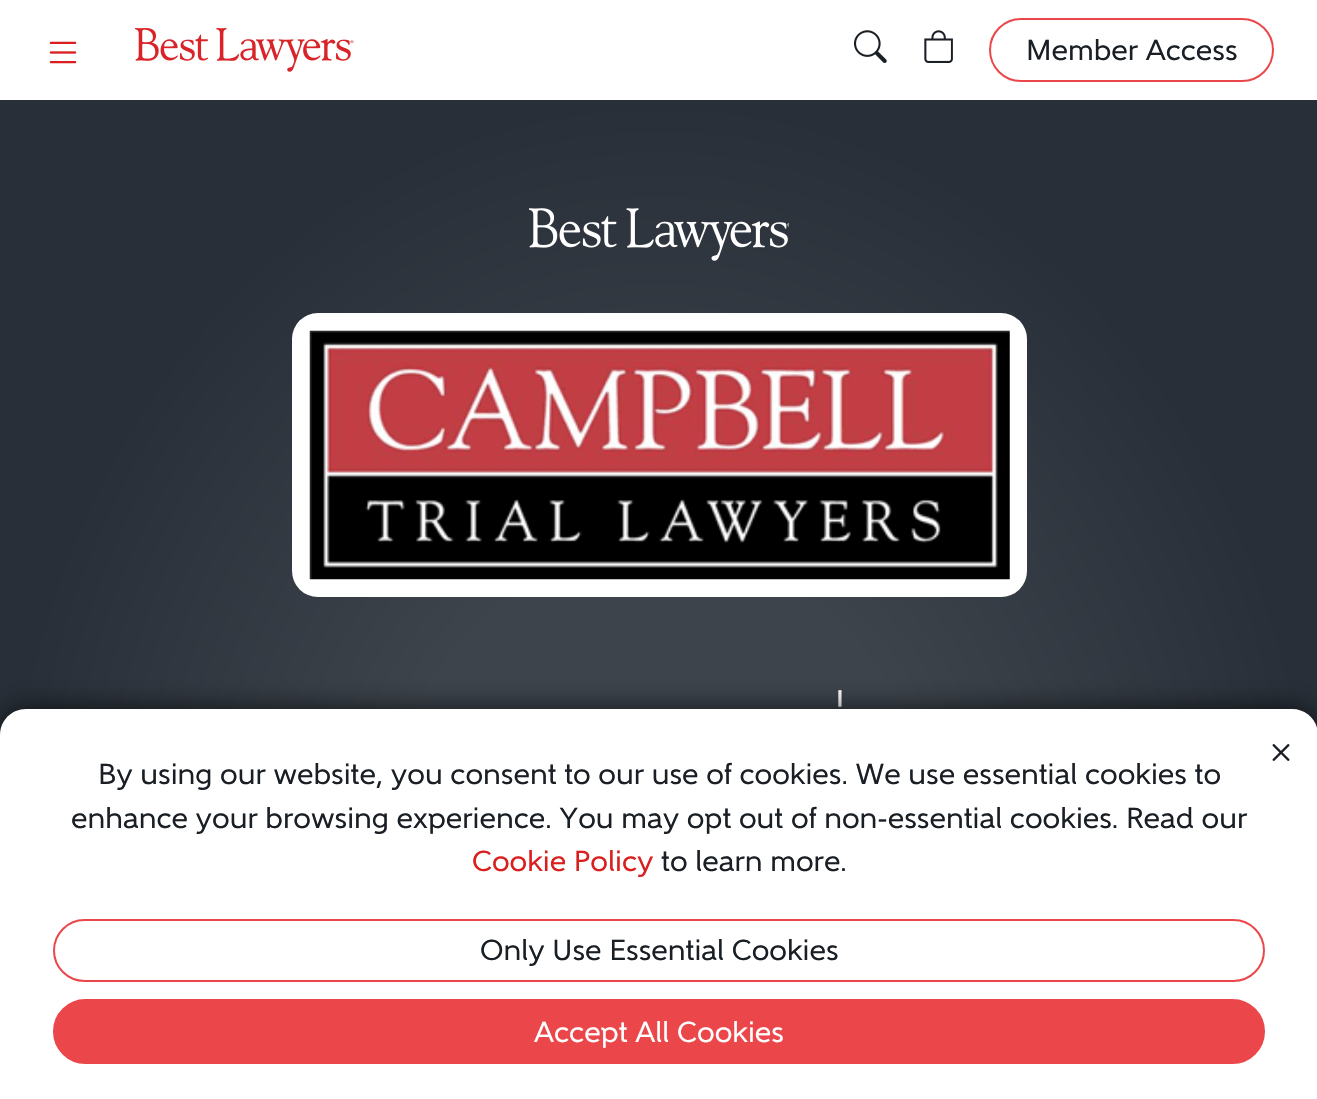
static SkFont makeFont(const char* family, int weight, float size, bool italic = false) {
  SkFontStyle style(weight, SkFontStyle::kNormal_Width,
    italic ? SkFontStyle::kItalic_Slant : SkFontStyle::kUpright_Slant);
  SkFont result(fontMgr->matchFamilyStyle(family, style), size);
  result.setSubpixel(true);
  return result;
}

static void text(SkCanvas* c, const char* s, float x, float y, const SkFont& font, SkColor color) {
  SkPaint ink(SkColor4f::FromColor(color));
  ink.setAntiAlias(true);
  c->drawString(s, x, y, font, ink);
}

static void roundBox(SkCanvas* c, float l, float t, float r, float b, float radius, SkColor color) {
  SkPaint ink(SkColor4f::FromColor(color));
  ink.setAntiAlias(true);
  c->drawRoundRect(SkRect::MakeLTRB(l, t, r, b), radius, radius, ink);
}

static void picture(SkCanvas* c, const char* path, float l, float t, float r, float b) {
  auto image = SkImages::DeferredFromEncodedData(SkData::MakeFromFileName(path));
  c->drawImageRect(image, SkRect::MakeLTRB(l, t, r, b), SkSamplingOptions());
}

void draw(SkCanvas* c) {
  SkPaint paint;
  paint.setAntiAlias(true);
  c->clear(0xffffffff);
  picture(c, "img_01.png", 49, 41, 77, 64);
  picture(c, "img_02.png", 135, 28, 354, 72);
  picture(c, "img_03.png", 854, 30, 887, 63);
  picture(c, "img_04.png", 924, 30, 953, 63);
  paint.setStyle(SkPaint::kStroke_Style);
  paint.setStrokeWidth(2);
  paint.setColor(0xffeb4649);
  c->drawRoundRect(SkRect::MakeLTRB(990, 19, 1273, 81), 31, 31, paint);
  SkFont face1 = makeFont("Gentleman", 400, 28.9f);
  text(c, "Member Access", 1026, 60, face1, 0xff1a1f25);
  paint.setStyle(SkPaint::kFill_Style);
  {
    const SkColor colors[] = {0xff3d444c, 0xff282f38};
    const float stops[] = {0.42f, 1};
    SkMatrix m = SkMatrix::Translate(659, 886).preScale(659, 787);
    paint.setShader(SkGradientShader::MakeRadial({0, 0}, 1, colors, stops, 2, SkTileMode::kClamp, 0, &m));
    paint.setAlpha(255);
  }
  c->drawRect(SkRect::MakeLTRB(0, 100, 1317, 735), paint);
  picture(c, "img_05.png", 529, 208, 789, 261);
  roundBox(c, 292, 313, 1027, 597, 26, 0xffffffff);
  picture(c, "img_06.png", 309, 330, 1010, 580);
  SkFont face2 = makeFont("Optima", 400, 57);
  text(c, "'", 832, 730, face2, 0xffffffff);
  paint.setShader(nullptr);
  paint.setColor(0xb3000000);
  paint.setMaskFilter(SkMaskFilter::MakeBlur(kNormal_SkBlurStyle, 14));
  c->drawRoundRect(SkRect::MakeLTRB(0, 709, 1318, 1099), 26, 26, paint);
  paint.setMaskFilter(nullptr);
  paint.setColor(0xffffffff);
  c->drawPath(SkPathBuilder().moveTo(26, 709).lineTo(1292, 709).cubicTo(1306.5f, 709, 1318, 720.5f, 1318, 735).lineTo(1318, 1099).lineTo(0, 1099).lineTo(0, 735).cubicTo(0, 720.5f, 11.5f, 709, 26, 709).close().detach(), paint);
  picture(c, "img_07.png", 1272, 744, 1290, 761);
  text(c, "By using our website, you consent to our use of cookies. We use essential cookies to", 98, 784, face1, 0xff1a1f25);
  text(c, "enhance your browsing experience. You may opt out of non-essential cookies. Read our", 71, 828, face1, 0xff1a1f25);
  text(c, "Cookie Policy", 472, 871, face1, 0xffda1f1f);
  text(c, "to learn more.", 661, 871, face1, 0xff1a1f25);
  paint.setStyle(SkPaint::kStroke_Style);
  paint.setColor(0xffeb4649);
  c->drawRoundRect(SkRect::MakeLTRB(54, 920, 1264, 981), 30.5f, 30.5f, paint);
  text(c, "Only Use Essential Cookies", 480, 960, face1, 0xff1a1f25);
  paint.setStyle(SkPaint::kFill_Style);
  c->drawRoundRect(SkRect::MakeLTRB(54, 1000, 1264, 1063), 31.5f, 31.5f, paint);
  paint.setStyle(SkPaint::kStroke_Style);
  c->drawRoundRect(SkRect::MakeLTRB(54, 1000, 1264, 1063), 31.5f, 31.5f, paint);
  text(c, "Accept All Cookies", 534, 1042, face1, 0xffffffff);
}
